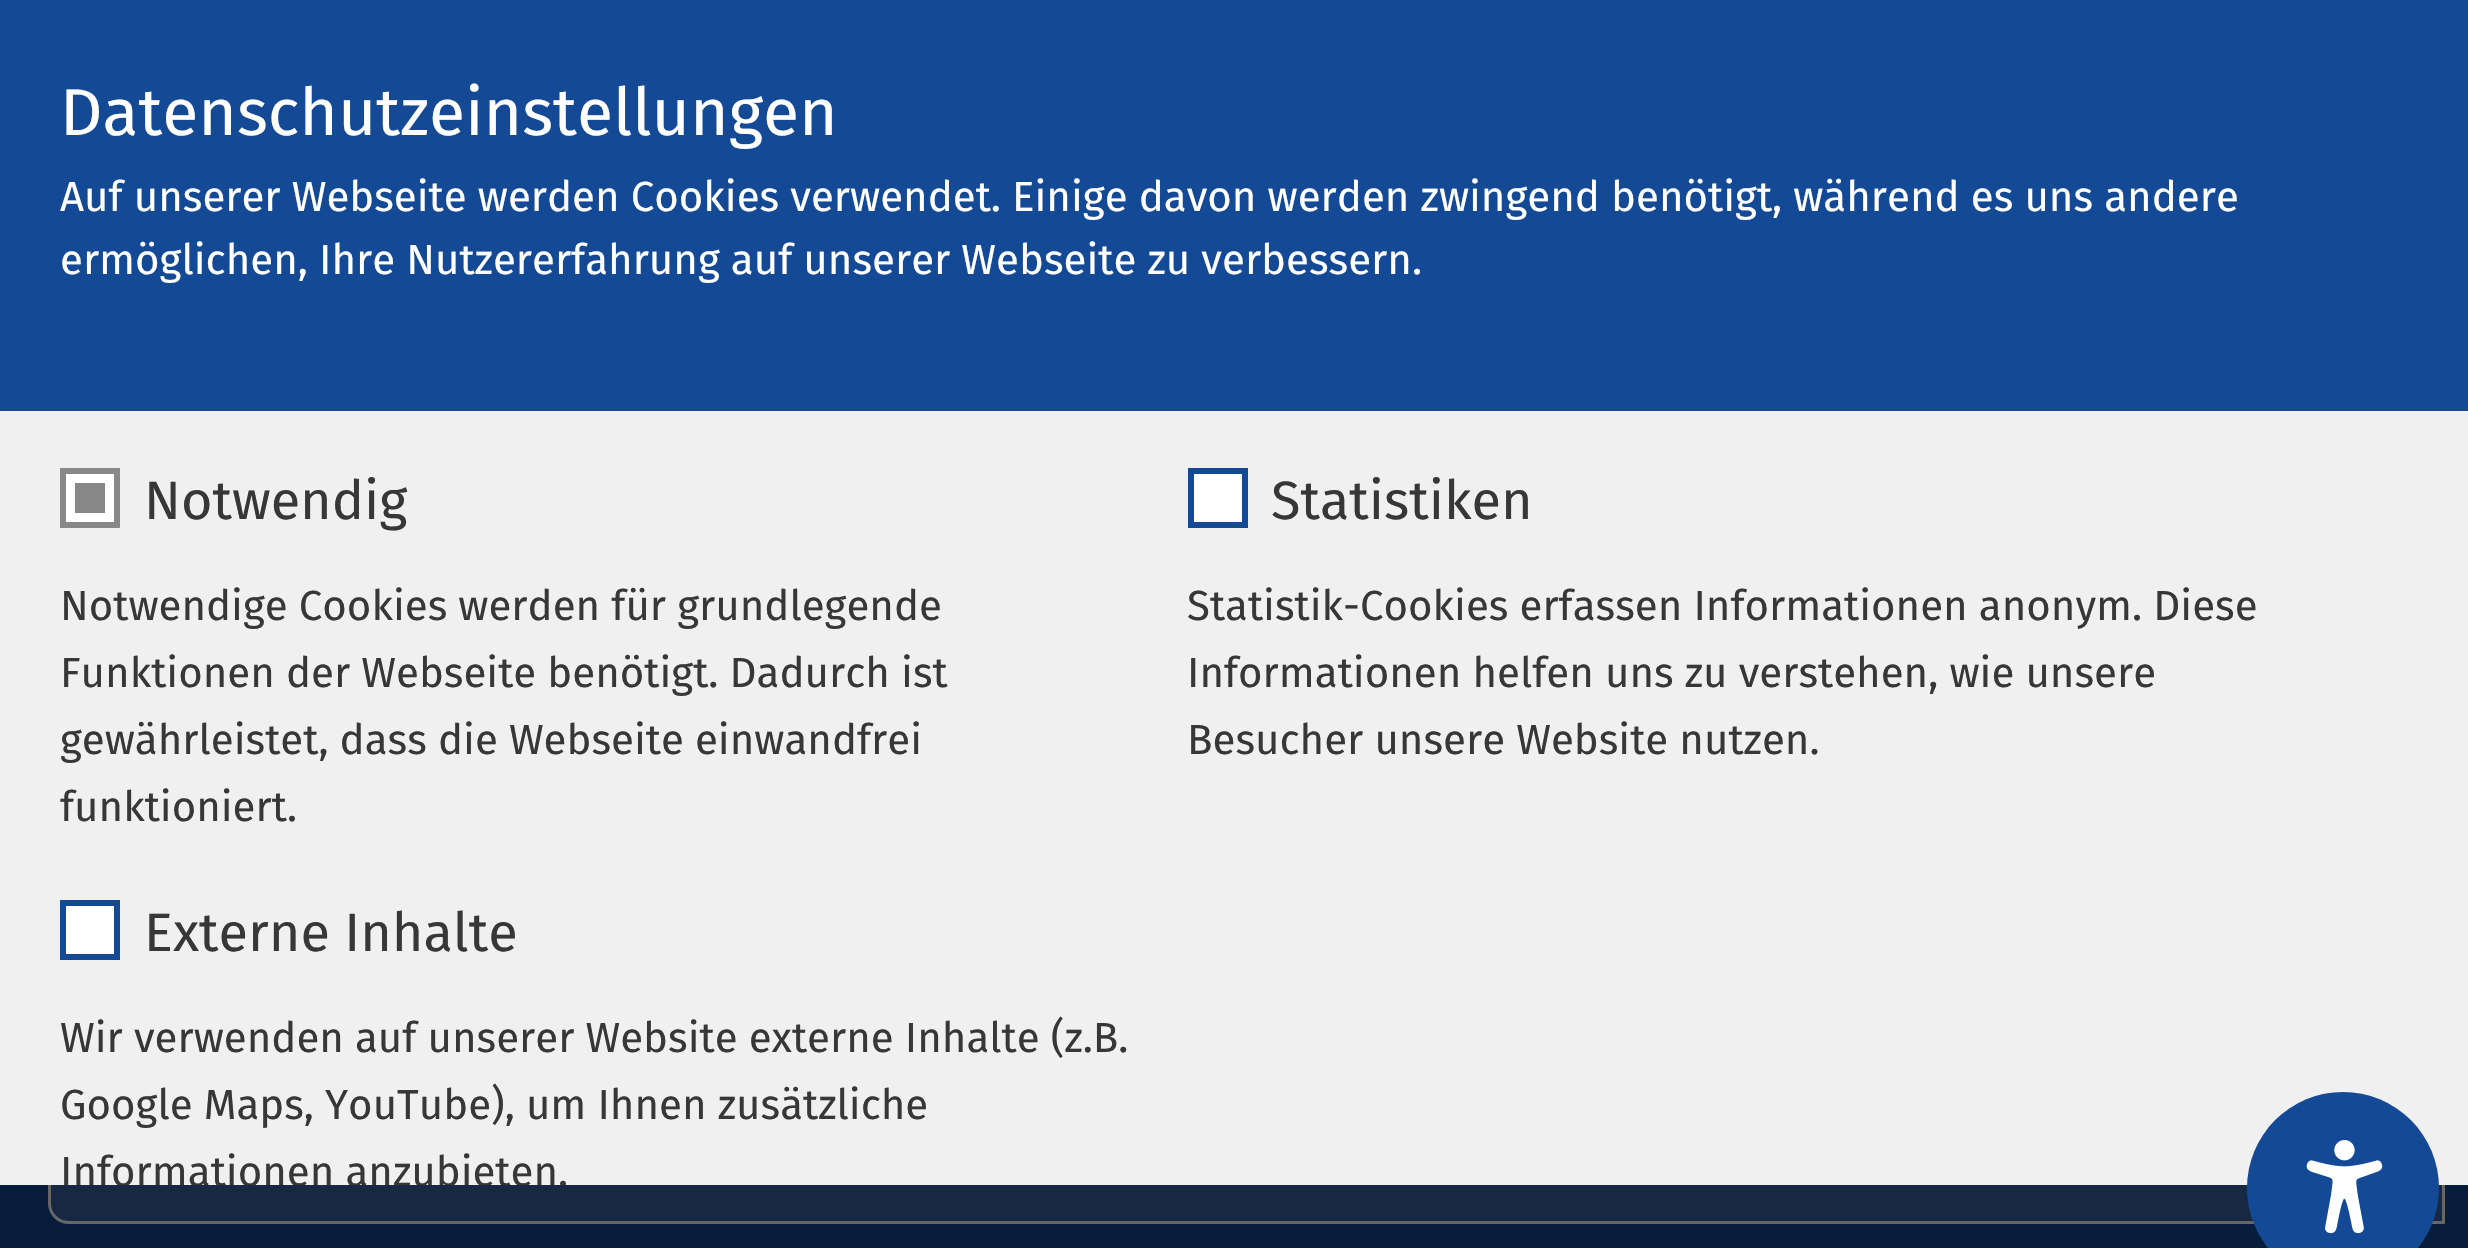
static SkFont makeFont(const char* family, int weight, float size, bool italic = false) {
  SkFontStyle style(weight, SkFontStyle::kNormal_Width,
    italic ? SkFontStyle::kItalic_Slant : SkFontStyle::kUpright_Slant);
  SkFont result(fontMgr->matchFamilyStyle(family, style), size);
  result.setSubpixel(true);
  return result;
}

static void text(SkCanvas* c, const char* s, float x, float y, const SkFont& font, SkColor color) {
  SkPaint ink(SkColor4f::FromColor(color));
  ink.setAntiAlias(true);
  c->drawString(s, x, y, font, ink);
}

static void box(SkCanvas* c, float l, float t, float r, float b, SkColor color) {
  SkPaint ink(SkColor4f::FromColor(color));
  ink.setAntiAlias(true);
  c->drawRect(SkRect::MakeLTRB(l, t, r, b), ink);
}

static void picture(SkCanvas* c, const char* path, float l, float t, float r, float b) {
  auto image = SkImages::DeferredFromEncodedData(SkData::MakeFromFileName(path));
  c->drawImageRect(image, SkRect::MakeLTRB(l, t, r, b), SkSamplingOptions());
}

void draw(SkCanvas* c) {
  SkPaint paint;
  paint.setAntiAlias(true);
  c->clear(0xff081d3c);
  paint.setColor(0xff162842);
  c->drawPath(SkPathBuilder().moveTo(49.5f, 1108.5f).lineTo(2424, 1108.5f).cubicTo(2435, 1108.5f, 2443.5f, 1117, 2443.5f, 1128).lineTo(2443.5f, 1222.5f).lineTo(69, 1222.5f).cubicTo(58, 1222.5f, 49.5f, 1214, 49.5f, 1203).close().detach(), paint);
  paint.setStyle(SkPaint::kStroke_Style);
  paint.setStrokeWidth(3);
  paint.setColor(0xff666666);
  c->drawPath(SkPathBuilder().moveTo(49.5f, 1108.5f).lineTo(2424, 1108.5f).cubicTo(2435, 1108.5f, 2443.5f, 1117, 2443.5f, 1128).lineTo(2443.5f, 1222.5f).lineTo(69, 1222.5f).cubicTo(58, 1222.5f, 49.5f, 1214, 49.5f, 1203).close().detach(), paint);
  box(c, 0, 411, 2468, 1185, 0xfff0f0f0);
  box(c, 0, 0, 2468, 411, 0xff144995);
  SkFont face1 = makeFont("Fira Sans", 400, 66);
  text(c, "Datenschutzeinstellungen", 60, 135, face1, 0xffffffff);
  SkFont face2 = makeFont("Fira Sans", 400, 42);
  text(c, "Auf unserer Webseite werden Cookies verwendet. Einige davon werden zwingend benötigt, während es uns andere", 60, 211, face2, 0xffffffff);
  text(c, "ermöglichen, Ihre Nutzererfahrung auf unserer Webseite zu verbessern.", 60, 274, face2, 0xffffffff);
  box(c, 60, 468, 120, 528, 0xff888888);
  paint.setStrokeWidth(9);
  paint.setColor(0xffffffff);
  c->drawRect(SkRect::MakeLTRB(70.5f, 478.5f, 109.5f, 517.5f), paint);
  SkFont face3 = makeFont("Fira Sans", 400, 54);
  text(c, "Notwendig", 144, 519, face3, 0xff373737);
  text(c, "Notwendige Cookies werden für grundlegende", 60, 620, face2, 0xff373737);
  text(c, "Funktionen der Webseite benötigt. Dadurch ist", 60, 687, face2, 0xff373737);
  text(c, "gewährleistet, dass die Webseite einwandfrei", 60, 754, face2, 0xff373737);
  text(c, "funktioniert.", 60, 821, face2, 0xff373737);
  paint.setStyle(SkPaint::kFill_Style);
  c->drawRect(SkRect::MakeLTRB(1191, 471, 1245, 525), paint);
  paint.setStyle(SkPaint::kStroke_Style);
  paint.setStrokeWidth(6);
  paint.setColor(0xff144995);
  c->drawRect(SkRect::MakeLTRB(1191, 471, 1245, 525), paint);
  text(c, "Statistiken", 1271, 519, face3, 0xff373737);
  text(c, "Statistik-Cookies erfassen Informationen anonym. Diese", 1187, 620, face2, 0xff373737);
  text(c, "Informationen helfen uns zu verstehen, wie unsere", 1187, 687, face2, 0xff373737);
  text(c, "Besucher unsere Website nutzen.", 1187, 754, face2, 0xff373737);
  paint.setStyle(SkPaint::kFill_Style);
  paint.setColor(0xffffffff);
  c->drawRect(SkRect::MakeLTRB(63, 903, 117, 957), paint);
  paint.setStyle(SkPaint::kStroke_Style);
  paint.setColor(0xff144995);
  c->drawRect(SkRect::MakeLTRB(63, 903, 117, 957), paint);
  text(c, "Externe Inhalte", 144, 951, face3, 0xff373737);
  text(c, "Wir verwenden auf unserer Website externe Inhalte (z.B.", 60, 1052, face2, 0xff373737);
  text(c, "Google Maps, YouTube), um Ihnen zusätzliche", 60, 1119, face2, 0xff373737);
  c->save();
  c->clipRect(SkRect::MakeLTRB(0, 0, 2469, 1185));
  text(c, "Informationen anzubieten.", 60, 1186, face2, 0xff373737);
  c->restore();
  paint.setStyle(SkPaint::kFill_Style);
  c->drawCircle(2343, 1188, 96, paint);
  picture(c, "img_01.png", 2306, 1140, 2383, 1234);
}
